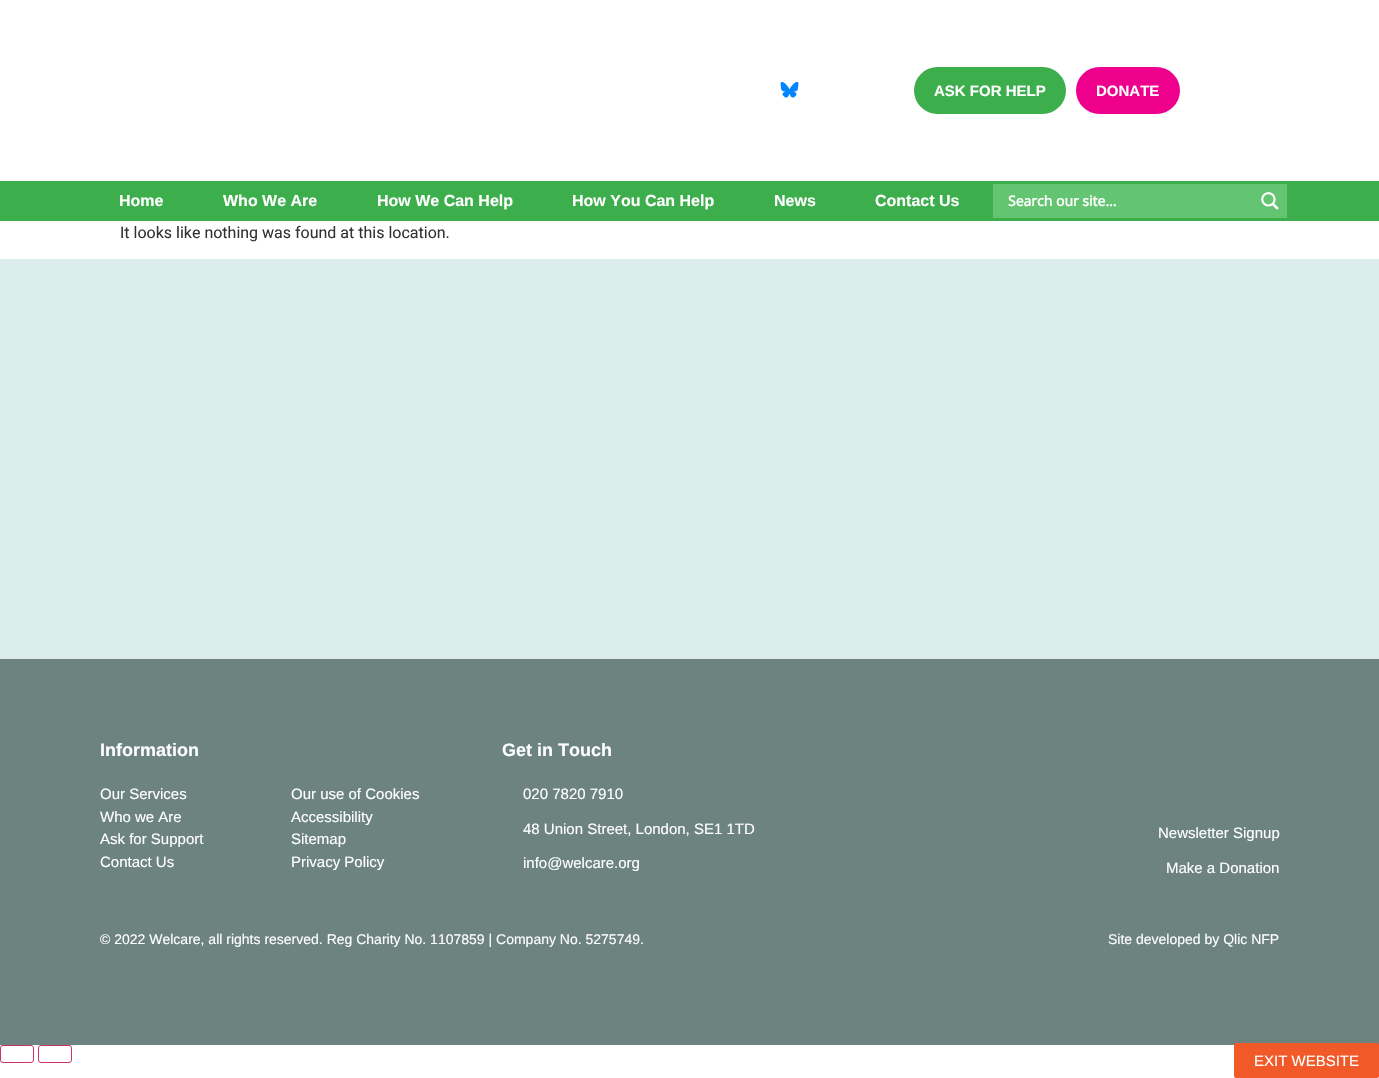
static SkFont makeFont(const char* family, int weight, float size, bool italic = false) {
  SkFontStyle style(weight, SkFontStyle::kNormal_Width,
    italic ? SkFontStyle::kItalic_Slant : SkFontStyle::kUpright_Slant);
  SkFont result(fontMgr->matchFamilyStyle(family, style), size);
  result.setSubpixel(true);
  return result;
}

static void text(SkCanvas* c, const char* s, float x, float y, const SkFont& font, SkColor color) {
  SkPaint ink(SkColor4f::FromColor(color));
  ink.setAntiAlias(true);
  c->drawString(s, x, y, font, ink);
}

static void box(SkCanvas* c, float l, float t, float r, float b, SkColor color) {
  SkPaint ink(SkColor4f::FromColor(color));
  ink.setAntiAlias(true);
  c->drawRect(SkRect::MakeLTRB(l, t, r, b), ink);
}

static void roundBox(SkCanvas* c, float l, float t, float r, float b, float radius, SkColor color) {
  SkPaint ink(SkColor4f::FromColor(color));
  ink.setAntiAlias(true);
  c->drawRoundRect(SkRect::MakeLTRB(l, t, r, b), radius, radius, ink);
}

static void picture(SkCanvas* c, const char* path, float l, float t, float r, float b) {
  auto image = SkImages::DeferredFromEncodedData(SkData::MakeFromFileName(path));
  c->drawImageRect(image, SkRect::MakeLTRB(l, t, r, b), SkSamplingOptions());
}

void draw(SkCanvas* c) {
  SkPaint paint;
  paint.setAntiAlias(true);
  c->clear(0xffffffff);
  picture(c, "img_01.png", 780, 81, 799, 98);
  roundBox(c, 914, 67, 1066, 114, 23.5f, 0xff3cae4c);
  SkFont face1 = makeFont("Liberation Sans", 700, 15);
  text(c, "ASK FOR HELP", 934, 96, face1, 0xffffffff);
  roundBox(c, 1076, 67, 1180, 114, 23.5f, 0xffee008c);
  text(c, "DONATE", 1096, 96, face1, 0xffffffff);
  box(c, 0, 181, 1379, 221, 0xff3cae4c);
  SkFont face2 = makeFont("Liberation Sans", 700, 16);
  text(c, "Home", 119, 206, face2, 0xffffffff);
  text(c, "Who We Are", 223, 206, face2, 0xffffffff);
  text(c, "How We Can Help", 377, 206, face2, 0xffffffff);
  text(c, "How You Can Help", 572, 206, face2, 0xffffffff);
  text(c, "News", 774, 206, face2, 0xffffffff);
  text(c, "Contact Us", 875, 206, face2, 0xffffffff);
  box(c, 993, 184, 1287, 218, 0xff63c471);
  SkFont face3 = makeFont("Open Sans", 700, 14);
  text(c, "Search our site...", 1008, 206, face3, 0xffffffff);
  picture(c, "img_02.png", 1261, 192, 1279, 210);
  SkFont face4 = makeFont("Roboto", 400, 16);
  text(c, "It looks like nothing was found at this location.", 120, 238, face4, 0xff333333);
  paint.setStyle(SkPaint::kStroke_Style);
  paint.setStrokeWidth(1);
  paint.setColor(0xffcc3366);
  c->drawRoundRect(SkRect::MakeLTRB(0.5f, 1045.5f, 33.5f, 1062.5f), 2.5f, 2.5f, paint);
  c->drawRoundRect(SkRect::MakeLTRB(38.5f, 1045.5f, 71.5f, 1062.5f), 2.5f, 2.5f, paint);
  box(c, 0, 259, 1379, 659, 0xffdaedea);
  box(c, 0, 659, 1379, 1045, 0xff6d837f);
  SkFont face5 = makeFont("Liberation Sans", 700, 18);
  text(c, "Information", 100, 756, face5, 0xffffffff);
  SkFont face6 = makeFont("Liberation Sans", 400, 15);
  text(c, "Our Services", 100, 799, face6, 0xffffffff);
  text(c, "Our use of Cookies", 291, 799, face6, 0xffffffff);
  text(c, "Who we Are", 100, 822, face6, 0xffffffff);
  text(c, "Accessibility", 291, 822, face6, 0xffffffff);
  text(c, "Ask for Support", 100, 844, face6, 0xffffffff);
  text(c, "Sitemap", 291, 844, face6, 0xffffffff);
  text(c, "Contact Us", 100, 867, face6, 0xffffffff);
  text(c, "Privacy Policy", 291, 867, face6, 0xffffffff);
  text(c, "Get in Touch", 502, 756, face5, 0xffffffff);
  text(c, "020 7820 7910", 523, 799, face6, 0xffffffff);
  text(c, "48 Union Street, London, SE1 1TD", 523, 834, face6, 0xffffffff);
  text(c, "info@welcare.org", 523, 868, face6, 0xffffffff);
  text(c, "Newsletter Signup", 1158, 838, face6, 0xffffffff);
  text(c, "Make a Donation", 1166, 873, face6, 0xffffffff);
  SkFont face7 = makeFont("Liberation Sans", 400, 14);
  text(c, "© 2022 Welcare, all rights reserved. Reg Charity No. 1107859 | Company No. 5275749.", 100, 944, face7, 0xffffffff);
  text(c, "Site developed by Qlic NFP", 1108, 944, face7, 0xffffffff);
  roundBox(c, 1234, 1043, 1379, 1078, 2, 0xfff15928);
  text(c, "EXIT WEBSITE", 1254, 1066, face6, 0xffffffff);
}
